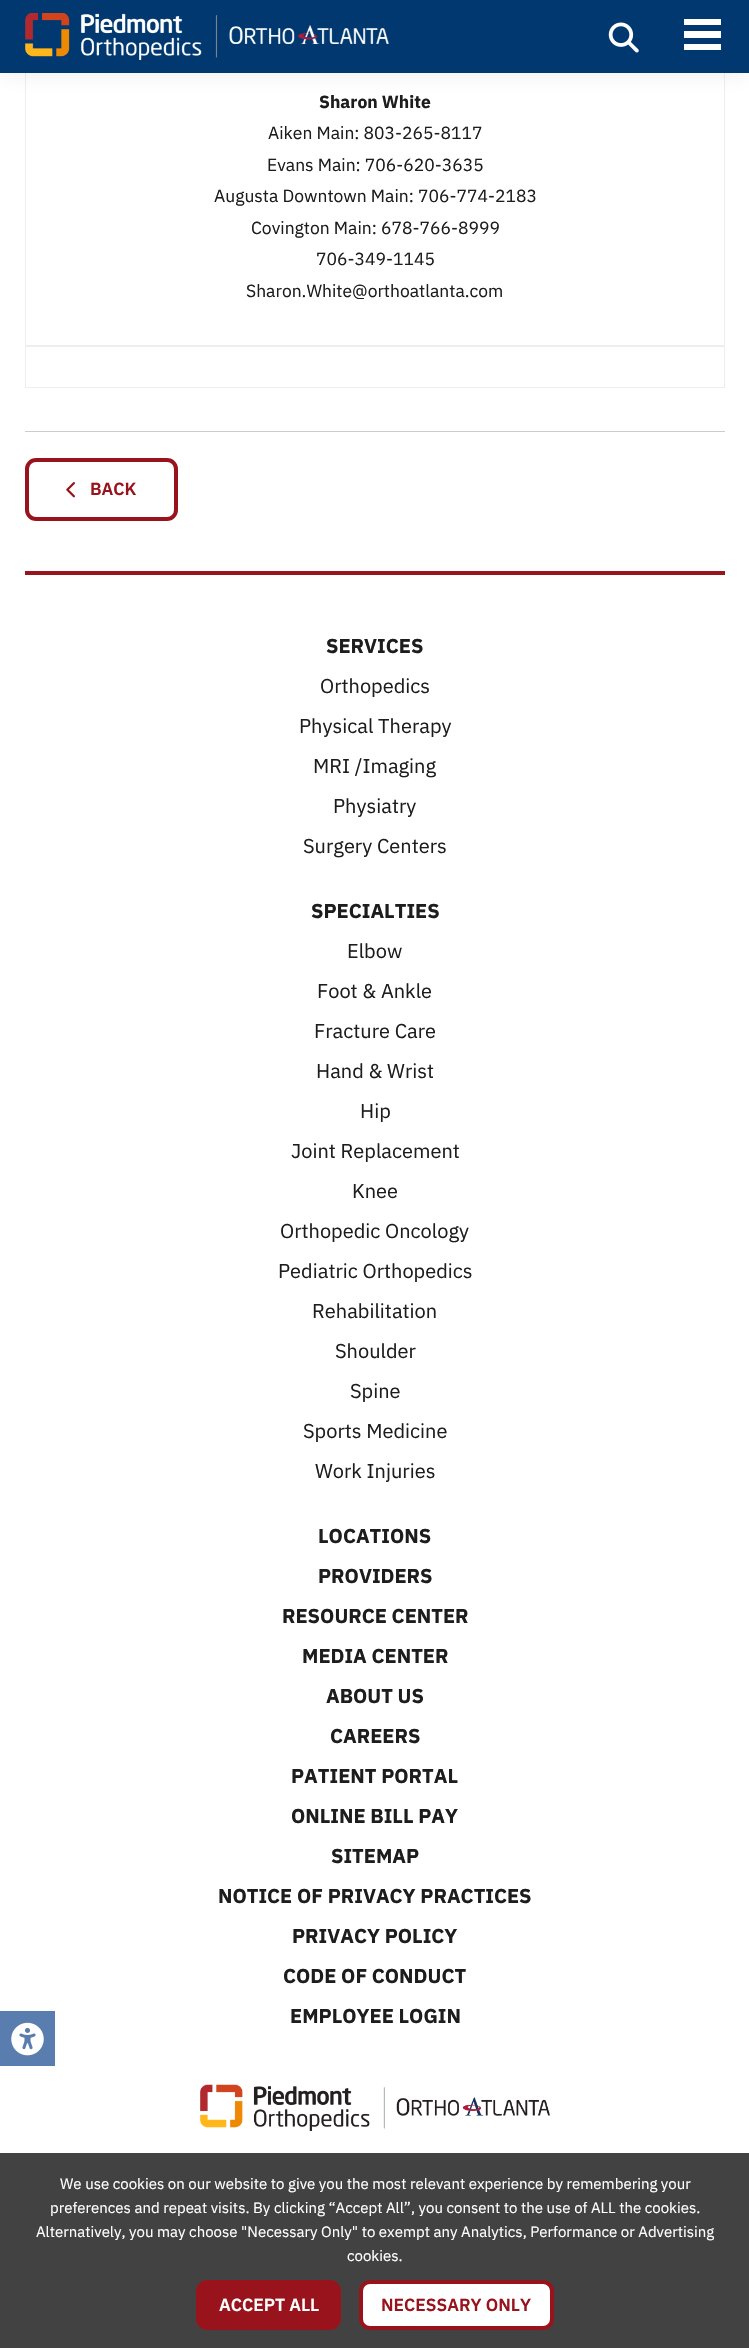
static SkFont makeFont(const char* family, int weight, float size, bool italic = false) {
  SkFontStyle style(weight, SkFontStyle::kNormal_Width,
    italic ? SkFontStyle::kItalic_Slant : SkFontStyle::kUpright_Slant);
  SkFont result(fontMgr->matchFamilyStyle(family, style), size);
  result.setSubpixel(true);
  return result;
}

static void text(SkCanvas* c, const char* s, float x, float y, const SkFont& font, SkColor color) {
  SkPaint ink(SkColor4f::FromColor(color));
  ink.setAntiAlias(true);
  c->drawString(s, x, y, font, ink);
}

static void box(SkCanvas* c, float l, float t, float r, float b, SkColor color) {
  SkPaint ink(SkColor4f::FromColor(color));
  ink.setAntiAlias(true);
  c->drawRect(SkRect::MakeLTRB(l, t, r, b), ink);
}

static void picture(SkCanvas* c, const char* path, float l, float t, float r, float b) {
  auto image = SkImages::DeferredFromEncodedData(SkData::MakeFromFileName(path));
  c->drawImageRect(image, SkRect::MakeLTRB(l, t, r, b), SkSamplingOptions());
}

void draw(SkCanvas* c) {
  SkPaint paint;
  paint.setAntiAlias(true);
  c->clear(0xffffffff);
  paint.setStyle(SkPaint::kStroke_Style);
  paint.setStrokeWidth(1);
  paint.setColor(0xffeeeeee);
  c->drawRect(SkRect::MakeLTRB(25.5f, 65.5f, 724.5f, 345.5f), paint);
  paint.setStyle(SkPaint::kFill_Style);
  paint.setColor(0x140a1015);
  paint.setMaskFilter(SkMaskFilter::MakeBlur(kNormal_SkBlurStyle, 12.5f));
  c->drawRect(SkRect::MakeLTRB(0, 0, 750, 73), paint);
  paint.setMaskFilter(nullptr);
  box(c, 0, 0, 749, 73, 0xff00386f);
  picture(c, "img_01.png", 25, 13, 389, 60);
  picture(c, "img_02.png", 608, 22, 639, 53);
  box(c, 684, 19, 721, 25, 0xffffffff);
  box(c, 684, 31, 721, 38, 0xffffffff);
  box(c, 684, 44, 721, 50, 0xffffffff);
  SkFont face1 = makeFont("IBM Plex Sans", 700, 17.5f);
  text(c, "Sharon White", 319, 108, face1, 0xff1d1d1d);
  SkFont face2 = makeFont("IBM Plex Sans", 400, 17.5f);
  text(c, "Aiken Main: 803-265-8117", 268, 139, face2, 0xff1d1d1d);
  text(c, "Evans Main: 706-620-3635", 267, 171, face2, 0xff1d1d1d);
  text(c, "Augusta Downtown Main: 706-774-2183", 214, 202, face2, 0xff1d1d1d);
  text(c, "Covington Main: 678-766-8999", 251, 234, face2, 0xff1d1d1d);
  text(c, "706-349-1145", 316, 265, face2, 0xff1d1d1d);
  text(c, "Sharon.White@orthoatlanta.com", 246, 297, face2, 0xff1d1d1d);
  paint.setStyle(SkPaint::kStroke_Style);
  paint.setColor(0xffeeeeee);
  c->drawRect(SkRect::MakeLTRB(25.5f, 346.5f, 724.5f, 387.5f), paint);
  box(c, 25, 431, 725, 432, 0xffcccccc);
  paint.setStrokeWidth(4);
  paint.setColor(0xff99131c);
  c->drawRoundRect(SkRect::MakeLTRB(27, 460, 176, 519), 9, 9, paint);
  picture(c, "img_03.png", 66, 482, 75, 498);
  SkFont face3 = makeFont("IBM Plex Sans", 600, 17.5f);
  text(c, "BACK", 90, 495, face3, 0xff99131c);
  box(c, 25, 571, 725, 575, 0xff97151d);
  SkFont face4 = makeFont("IBM Plex Sans", 700, 20);
  text(c, "SERVICES", 326, 653, face4, 0xff1d1d1d);
  SkFont face5 = makeFont("IBM Plex Sans", 400, 20);
  text(c, "Orthopedics", 320, 693, face5, 0xff1d1d1d);
  text(c, "Physical Therapy", 299, 733, face5, 0xff1d1d1d);
  text(c, "MRI /Imaging", 313, 773, face5, 0xff1d1d1d);
  text(c, "Physiatry", 333, 813, face5, 0xff1d1d1d);
  text(c, "Surgery Centers", 303, 853, face5, 0xff1d1d1d);
  text(c, "SPECIALTIES", 311, 918, face4, 0xff1d1d1d);
  text(c, "Elbow", 347, 958, face5, 0xff1d1d1d);
  text(c, "Foot & Ankle", 317, 998, face5, 0xff1d1d1d);
  text(c, "Fracture Care", 314, 1038, face5, 0xff1d1d1d);
  text(c, "Hand & Wrist", 316, 1078, face5, 0xff1d1d1d);
  text(c, "Hip", 360, 1118, face5, 0xff1d1d1d);
  text(c, "Joint Replacement", 291, 1158, face5, 0xff1d1d1d);
  text(c, "Knee", 352, 1198, face5, 0xff1d1d1d);
  text(c, "Orthopedic Oncology", 280, 1238, face5, 0xff1d1d1d);
  text(c, "Pediatric Orthopedics", 278, 1278, face5, 0xff1d1d1d);
  text(c, "Rehabilitation", 312, 1318, face5, 0xff1d1d1d);
  text(c, "Shoulder", 335, 1358, face5, 0xff1d1d1d);
  text(c, "Spine", 350, 1398, face5, 0xff1d1d1d);
  text(c, "Sports Medicine", 303, 1438, face5, 0xff1d1d1d);
  text(c, "Work Injuries", 315, 1478, face5, 0xff1d1d1d);
  text(c, "LOCATIONS", 318, 1543, face4, 0xff1d1d1d);
  text(c, "PROVIDERS", 318, 1583, face4, 0xff1d1d1d);
  text(c, "RESOURCE CENTER", 282, 1623, face4, 0xff1d1d1d);
  text(c, "MEDIA CENTER", 302, 1663, face4, 0xff1d1d1d);
  text(c, "ABOUT US", 326, 1703, face4, 0xff1d1d1d);
  text(c, "CAREERS", 330, 1743, face4, 0xff1d1d1d);
  text(c, "PATIENT PORTAL", 291, 1783, face4, 0xff1d1d1d);
  text(c, "ONLINE BILL PAY", 291, 1823, face4, 0xff1d1d1d);
  text(c, "SITEMAP", 331, 1863, face4, 0xff1d1d1d);
  text(c, "NOTICE OF PRIVACY PRACTICES", 218, 1903, face4, 0xff1d1d1d);
  text(c, "PRIVACY POLICY", 292, 1943, face4, 0xff1d1d1d);
  text(c, "CODE OF CONDUCT", 283, 1983, face4, 0xff1d1d1d);
  text(c, "EMPLOYEE LOGIN", 290, 2023, face4, 0xff1d1d1d);
  picture(c, "img_04.png", 200, 2084, 550, 2131);
  box(c, 0, 2011, 55, 2066, 0xff597daf);
  picture(c, "img_05.png", 11, 2022, 44, 2056);
  box(c, 0, 2153, 749, 2348, 0xff424242);
  SkFont face6 = makeFont("IBM Plex Sans", 400, 15);
  text(c, "We use cookies on our website to give you the most relevant experience by remembering your", 60, 2189, face6, 0xffffffff);
  text(c, "preferences and repeat visits. By clicking “Accept All”, you consent to the use of ALL the cookies.", 50, 2213, face6, 0xffffffff);
  text(c, "Alternatively, you may choose \"Necessary Only\" to exempt any Analytics, Performance or Advertising", 36, 2237, face6, 0xffffffff);
  text(c, "cookies.", 347, 2261, face6, 0xffffffff);
  paint.setStyle(SkPaint::kFill_Style);
  c->drawRoundRect(SkRect::MakeLTRB(198, 2282, 339, 2328), 9, 9, paint);
  paint.setStyle(SkPaint::kStroke_Style);
  c->drawRoundRect(SkRect::MakeLTRB(198, 2282, 339, 2328), 9, 9, paint);
  text(c, "ACCEPT ALL", 219, 2311, face3, 0xffffffff);
  paint.setStyle(SkPaint::kFill_Style);
  paint.setColor(0xffffffff);
  c->drawRoundRect(SkRect::MakeLTRB(361, 2282, 552, 2328), 9, 9, paint);
  paint.setStyle(SkPaint::kStroke_Style);
  paint.setColor(0xff99131c);
  c->drawRoundRect(SkRect::MakeLTRB(361, 2282, 552, 2328), 9, 9, paint);
  text(c, "NECESSARY ONLY", 381, 2311, face3, 0xff99131c);
}
